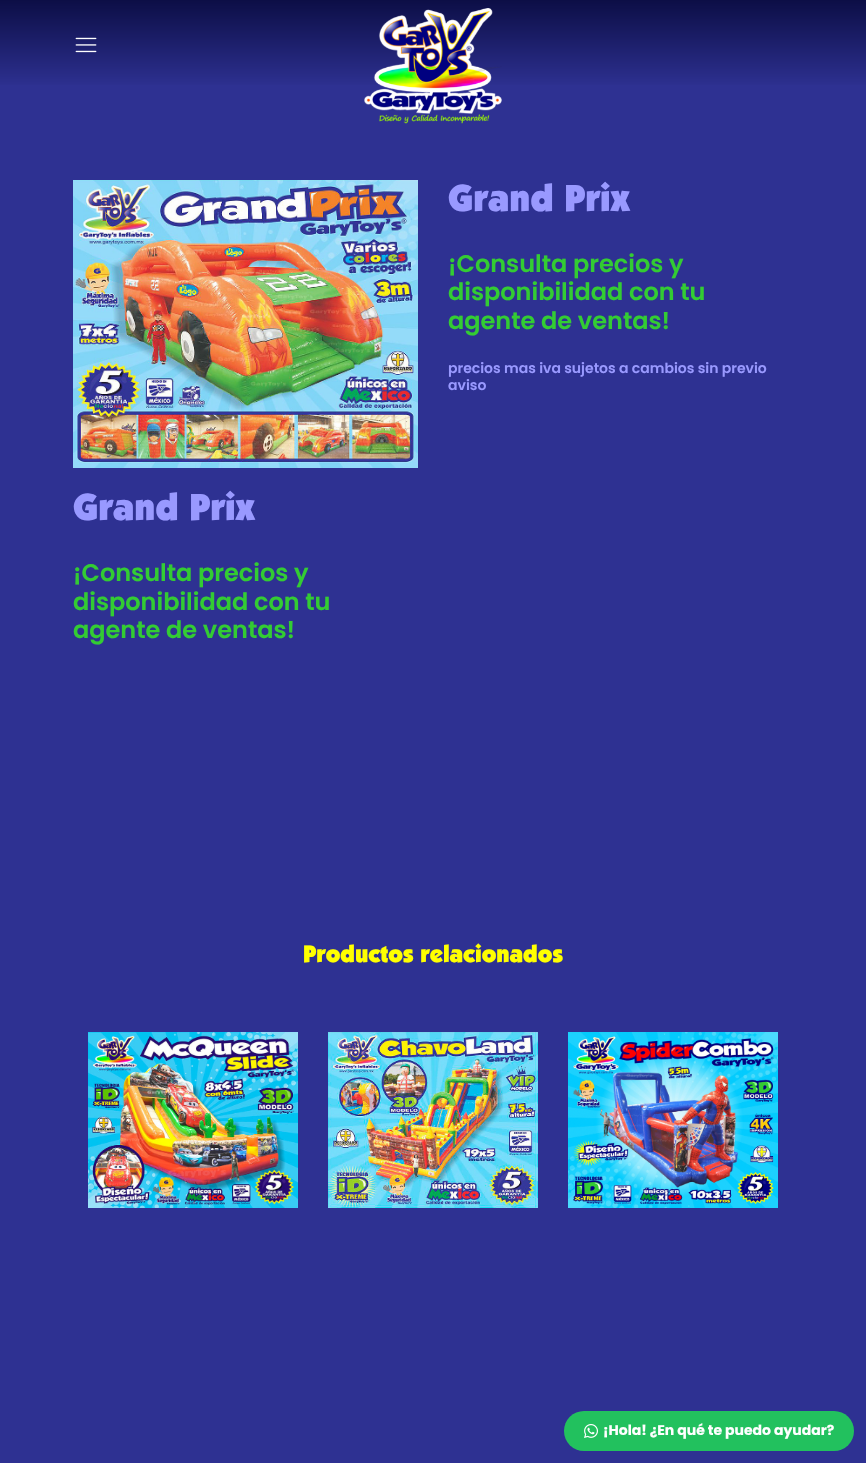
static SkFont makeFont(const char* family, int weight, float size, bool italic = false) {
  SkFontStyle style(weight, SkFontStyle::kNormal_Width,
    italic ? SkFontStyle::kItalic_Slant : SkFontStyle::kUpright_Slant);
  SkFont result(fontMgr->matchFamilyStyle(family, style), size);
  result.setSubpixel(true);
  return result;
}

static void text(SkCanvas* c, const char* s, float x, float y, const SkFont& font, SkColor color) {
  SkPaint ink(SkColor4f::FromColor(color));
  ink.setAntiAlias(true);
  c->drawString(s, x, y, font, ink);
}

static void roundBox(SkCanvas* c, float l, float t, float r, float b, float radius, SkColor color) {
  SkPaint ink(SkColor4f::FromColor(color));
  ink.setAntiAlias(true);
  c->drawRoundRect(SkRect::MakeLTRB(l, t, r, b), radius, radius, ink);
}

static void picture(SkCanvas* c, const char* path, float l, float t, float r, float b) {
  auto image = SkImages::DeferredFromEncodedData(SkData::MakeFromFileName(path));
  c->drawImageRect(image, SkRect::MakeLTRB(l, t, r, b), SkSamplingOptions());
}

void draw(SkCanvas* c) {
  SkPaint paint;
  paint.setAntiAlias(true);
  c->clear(0xff2e3192);
  {
    const SkColor colors[] = {0xff0c0e46, 0xff2e3192};
    const float stops[] = {0, 0.98f};
    const SkPoint ends[] = {{433, 0}, {433, 90}};
    paint.setShader(SkGradientShader::MakeLinear(ends, colors, stops, 2, SkTileMode::kClamp));
    paint.setAlpha(255);
  }
  c->drawRect(SkRect::MakeLTRB(0, 0, 866, 85), paint);
  picture(c, "img_01.png", 75, 37, 97, 53);
  picture(c, "img_02.png", 364, 8, 502, 124);
  picture(c, "img_03.png", 73, 180, 418, 468);
  SkFont face1 = makeFont("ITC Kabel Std", 800, 38);
  text(c, "Grand Prix", 448, 211, face1, 0xff9999ff);
  SkFont face2 = makeFont("Poppins", 600, 24);
  text(c, "¡Consulta precios y", 448, 272, face2, 0xff33cc33);
  text(c, "disponibilidad con tu", 448, 300, face2, 0xff33cc33);
  text(c, "agente de ventas!", 448, 329, face2, 0xff33cc33);
  SkFont face3 = makeFont("Poppins", 600, 14);
  text(c, "precios mas iva sujetos a cambios sin previo", 448, 373, face3, 0xff9999ff);
  text(c, "aviso", 448, 390, face3, 0xff9999ff);
  text(c, "Grand Prix", 73, 520, face1, 0xff9999ff);
  text(c, "¡Consulta precios y", 73, 581, face2, 0xff33cc33);
  text(c, "disponibilidad con tu", 73, 610, face2, 0xff33cc33);
  text(c, "agente de ventas!", 73, 638, face2, 0xff33cc33);
  SkFont face4 = makeFont("ITC Kabel Std", 800, 24);
  text(c, "Productos relacionados", 303, 962, face4, 0xffffff00);
  picture(c, "img_04.png", 88, 1032, 298, 1208);
  picture(c, "img_05.png", 328, 1032, 538, 1208);
  picture(c, "img_06.png", 568, 1032, 778, 1208);
  roundBox(c, 564, 1411, 854, 1451, 20, 0xff22c15e);
  picture(c, "img_07.png", 584, 1424, 598, 1438);
  SkFont face5 = makeFont("Poppins", 700, 14);
  text(c, "¡Hola! ¿En qué te puedo ayudar?", 603, 1435, face5, 0xffffffff);
}
